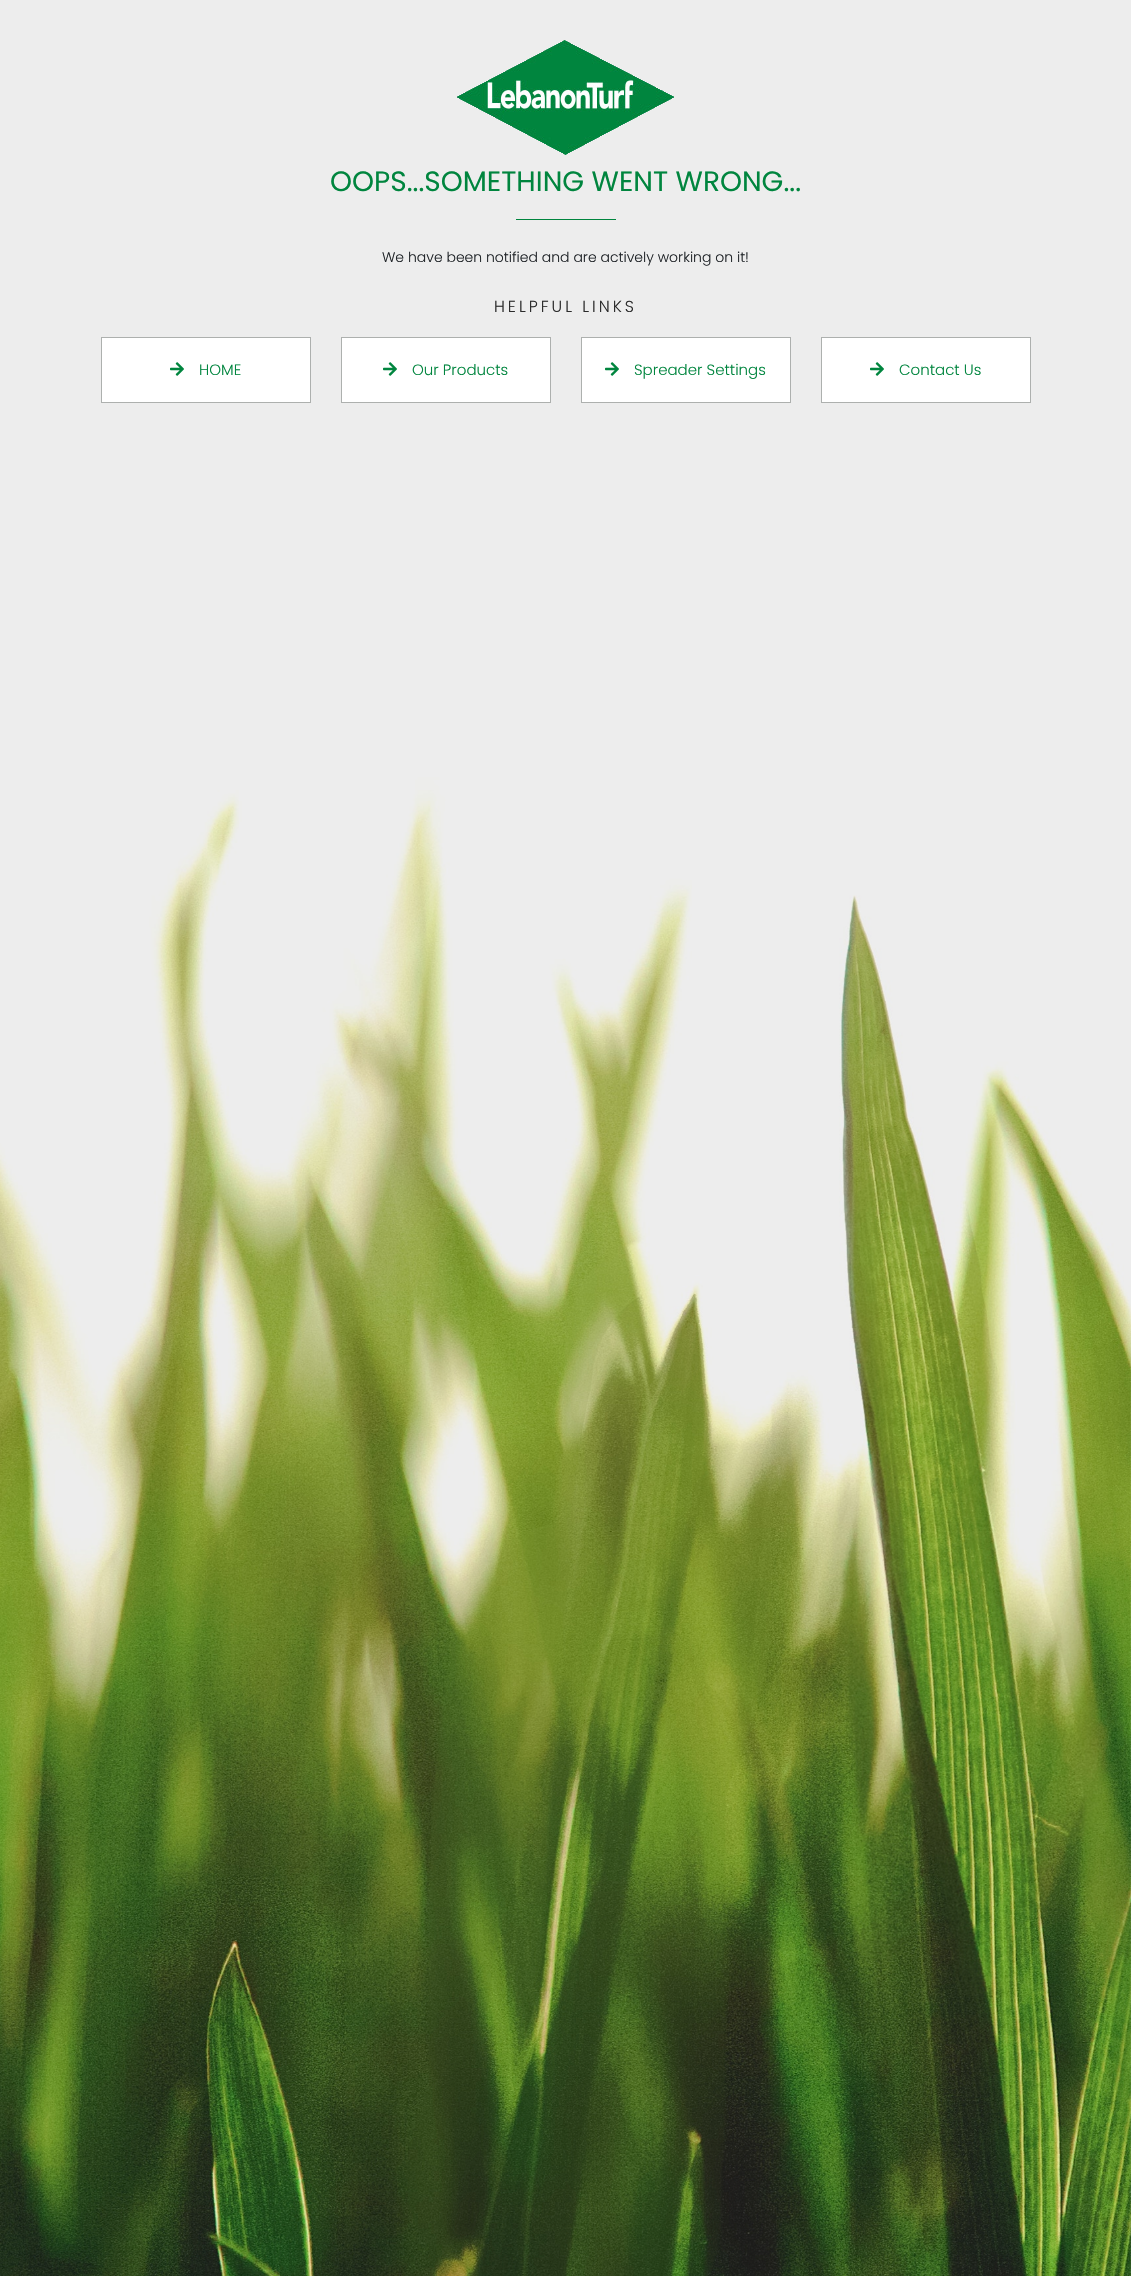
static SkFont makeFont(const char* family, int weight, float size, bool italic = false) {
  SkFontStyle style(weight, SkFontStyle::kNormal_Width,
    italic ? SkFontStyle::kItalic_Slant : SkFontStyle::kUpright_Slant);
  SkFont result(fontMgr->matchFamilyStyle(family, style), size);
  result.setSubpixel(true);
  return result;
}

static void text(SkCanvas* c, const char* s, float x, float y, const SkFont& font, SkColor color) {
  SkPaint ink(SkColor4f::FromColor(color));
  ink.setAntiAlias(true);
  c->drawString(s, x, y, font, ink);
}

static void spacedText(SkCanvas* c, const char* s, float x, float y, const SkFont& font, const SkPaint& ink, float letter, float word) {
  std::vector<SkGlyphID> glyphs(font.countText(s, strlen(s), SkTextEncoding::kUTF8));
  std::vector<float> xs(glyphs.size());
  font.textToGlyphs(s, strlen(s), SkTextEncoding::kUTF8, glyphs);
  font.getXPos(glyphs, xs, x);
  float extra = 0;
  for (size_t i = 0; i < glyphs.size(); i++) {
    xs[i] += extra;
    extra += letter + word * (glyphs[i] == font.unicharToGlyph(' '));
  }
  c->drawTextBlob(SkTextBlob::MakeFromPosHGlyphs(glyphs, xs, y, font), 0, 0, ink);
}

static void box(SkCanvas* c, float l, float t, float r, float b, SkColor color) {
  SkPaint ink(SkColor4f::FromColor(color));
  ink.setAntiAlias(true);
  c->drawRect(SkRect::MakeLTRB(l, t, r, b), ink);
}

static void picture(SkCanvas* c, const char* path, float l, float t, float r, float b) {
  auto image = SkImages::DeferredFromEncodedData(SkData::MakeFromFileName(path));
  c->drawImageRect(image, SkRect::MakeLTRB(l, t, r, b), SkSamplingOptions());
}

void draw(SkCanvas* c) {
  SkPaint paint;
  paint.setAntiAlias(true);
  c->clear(0xffffffff);
  picture(c, "img_01.png", 0, 0, 1131, 2276);
  picture(c, "img_02.png", 457, 40, 674, 155);
  SkFont face1 = makeFont("Poppins", 400, 28);
  text(c, "OOPS...SOMETHING WENT WRONG...", 330, 191, face1, 0xff00853e);
  box(c, 516, 219, 616, 220, 0xff00853e);
  SkFont face2 = makeFont("Poppins", 300, 14);
  text(c, "We have been notified and are actively working on it!", 382, 262, face2, 0xff212529);
  SkFont face3 = makeFont("Poppins", 300, 16);
  paint.setColor(0xff2b2b2b);
  spacedText(c, "HELPFUL LINKS", 494, 312, face3, paint, 3, 0);
  paint.setColor(0xffffffff);
  c->drawRect(SkRect::MakeLTRB(101.5f, 337.5f, 310.5f, 402.5f), paint);
  paint.setStyle(SkPaint::kStroke_Style);
  paint.setStrokeWidth(1);
  paint.setColor(0xffadb0ae);
  c->drawRect(SkRect::MakeLTRB(101.5f, 337.5f, 310.5f, 402.5f), paint);
  picture(c, "img_03.png", 170, 362, 184, 376);
  SkFont face4 = makeFont("Poppins", 300, 15);
  text(c, "HOME", 199, 375, face4, 0xff00853e);
  paint.setStyle(SkPaint::kFill_Style);
  paint.setColor(0xffffffff);
  c->drawRect(SkRect::MakeLTRB(341.5f, 337.5f, 550.5f, 402.5f), paint);
  paint.setStyle(SkPaint::kStroke_Style);
  paint.setColor(0xffadb0ae);
  c->drawRect(SkRect::MakeLTRB(341.5f, 337.5f, 550.5f, 402.5f), paint);
  picture(c, "img_03.png", 383, 362, 397, 376);
  text(c, "Our Products", 412, 375, face4, 0xff00853e);
  paint.setStyle(SkPaint::kFill_Style);
  paint.setColor(0xffffffff);
  c->drawRect(SkRect::MakeLTRB(581.5f, 337.5f, 790.5f, 402.5f), paint);
  paint.setStyle(SkPaint::kStroke_Style);
  paint.setColor(0xffadb0ae);
  c->drawRect(SkRect::MakeLTRB(581.5f, 337.5f, 790.5f, 402.5f), paint);
  picture(c, "img_03.png", 605, 362, 619, 376);
  text(c, "Spreader Settings", 634, 375, face4, 0xff00853e);
  paint.setStyle(SkPaint::kFill_Style);
  paint.setColor(0xffffffff);
  c->drawRect(SkRect::MakeLTRB(821.5f, 337.5f, 1030.5f, 402.5f), paint);
  paint.setStyle(SkPaint::kStroke_Style);
  paint.setColor(0xffadb0ae);
  c->drawRect(SkRect::MakeLTRB(821.5f, 337.5f, 1030.5f, 402.5f), paint);
  picture(c, "img_03.png", 870, 362, 884, 376);
  text(c, "Contact Us", 899, 375, face4, 0xff00853e);
}
